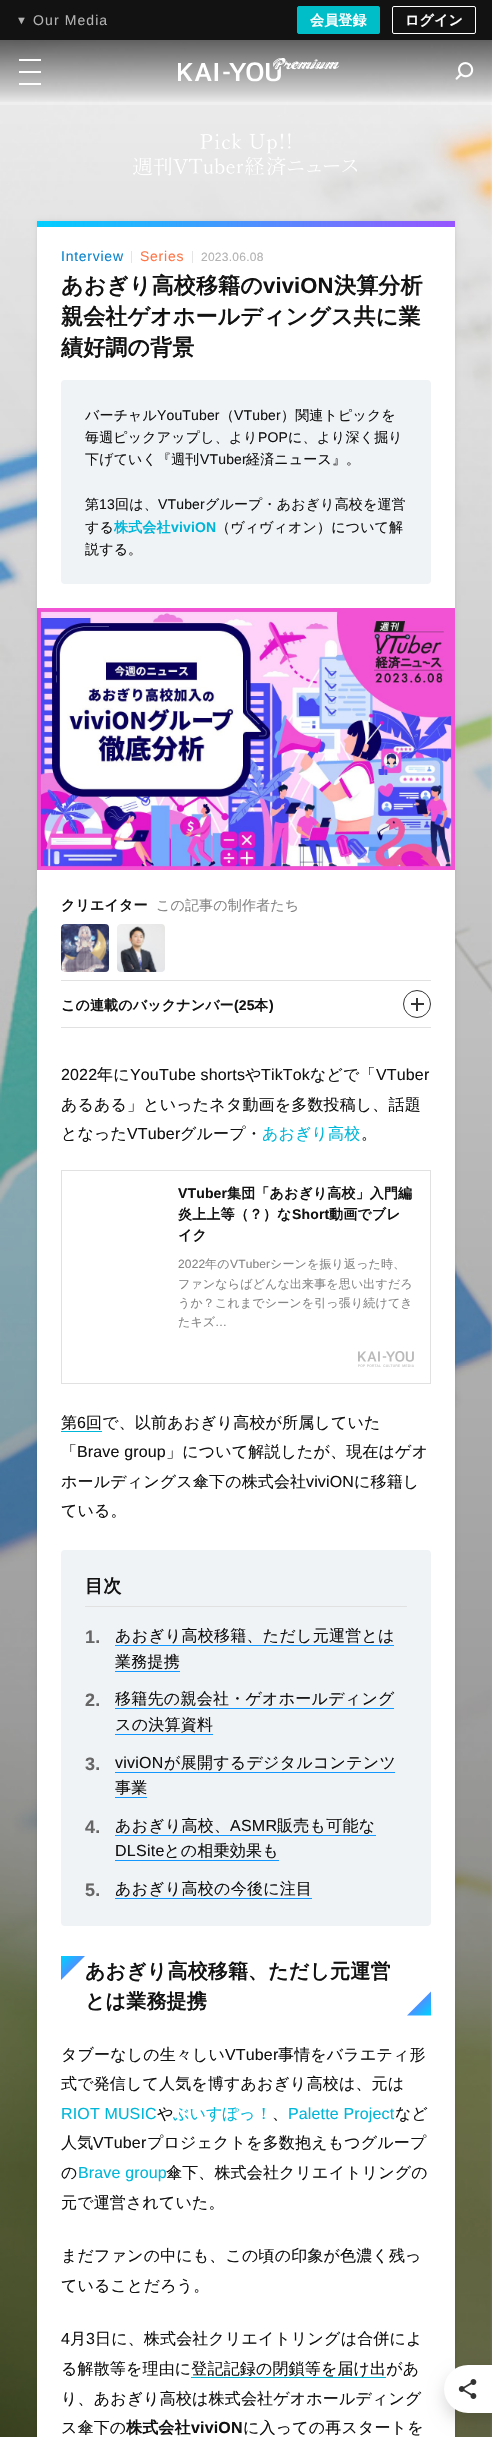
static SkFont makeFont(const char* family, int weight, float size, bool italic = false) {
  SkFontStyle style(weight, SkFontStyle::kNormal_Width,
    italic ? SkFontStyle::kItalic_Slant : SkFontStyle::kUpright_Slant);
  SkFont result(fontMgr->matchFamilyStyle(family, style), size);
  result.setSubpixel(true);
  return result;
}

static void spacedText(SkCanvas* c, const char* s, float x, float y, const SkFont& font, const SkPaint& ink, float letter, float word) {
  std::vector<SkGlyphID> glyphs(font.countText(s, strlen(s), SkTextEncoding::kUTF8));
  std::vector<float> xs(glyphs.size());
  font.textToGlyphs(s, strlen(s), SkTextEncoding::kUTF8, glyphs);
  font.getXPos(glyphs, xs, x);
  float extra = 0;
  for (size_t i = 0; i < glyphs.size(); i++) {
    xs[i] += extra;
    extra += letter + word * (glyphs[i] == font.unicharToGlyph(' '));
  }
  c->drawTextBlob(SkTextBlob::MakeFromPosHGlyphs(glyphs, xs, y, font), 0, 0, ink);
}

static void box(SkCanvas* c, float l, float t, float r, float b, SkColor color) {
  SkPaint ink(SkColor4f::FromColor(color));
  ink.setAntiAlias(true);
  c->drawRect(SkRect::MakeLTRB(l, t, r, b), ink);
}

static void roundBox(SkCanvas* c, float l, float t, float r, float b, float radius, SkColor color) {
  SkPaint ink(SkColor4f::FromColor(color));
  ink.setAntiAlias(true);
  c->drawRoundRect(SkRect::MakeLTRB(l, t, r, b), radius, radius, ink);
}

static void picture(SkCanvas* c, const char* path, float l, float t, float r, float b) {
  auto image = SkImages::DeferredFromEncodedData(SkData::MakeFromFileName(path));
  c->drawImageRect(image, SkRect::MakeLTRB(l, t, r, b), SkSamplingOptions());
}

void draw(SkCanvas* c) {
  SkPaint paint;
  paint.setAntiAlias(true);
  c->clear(0xffffffff);
  box(c, 0, 0, 492, 40, 0xff121212);
  SkFont face1 = makeFont("Liberation Sans", 400, 11);
  paint.setColor(0xffb2b2b2);
  spacedText(c, "▼", 16, 24, face1, paint, 1.1f, 0);
  SkFont face2 = makeFont("Liberation Sans", 400, 14);
  spacedText(c, "Our Media", 33, 25, face2, paint, 1.1f, 0);
  paint.setColor(0xff00bec8);
  c->drawRoundRect(SkRect::MakeLTRB(297.5f, 6.5f, 379.5f, 33.5f), 1.5f, 1.5f, paint);
  paint.setStyle(SkPaint::kStroke_Style);
  paint.setStrokeWidth(1);
  c->drawRoundRect(SkRect::MakeLTRB(297.5f, 6.5f, 379.5f, 33.5f), 1.5f, 1.5f, paint);
  SkFont face3 = makeFont("WenQuanYi Zen Hei", 700, 14);
  paint.setStyle(SkPaint::kFill_Style);
  paint.setColor(0xffffffff);
  spacedText(c, "会員登録", 310, 25, face3, paint, 0.15f, 0);
  paint.setStyle(SkPaint::kStroke_Style);
  c->drawRoundRect(SkRect::MakeLTRB(392.5f, 6.5f, 475.5f, 33.5f), 1.5f, 1.5f, paint);
  paint.setStyle(SkPaint::kFill_Style);
  spacedText(c, "ログイン", 405, 25, face3, paint, 0.15f, 0);
  picture(c, "img_03.png", 0, 40, 492, 2437);
  {
    const SkColor colors[] = {0x99000000, 0x26000000, 0x00000000};
    const float stops[] = {0, 0.8f, 1};
    const SkPoint ends[] = {{246, 40}, {246, 104}};
    paint.setShader(SkGradientShader::MakeLinear(ends, colors, stops, 3, SkTileMode::kClamp));
    paint.setAlpha(255);
  }
  c->drawRect(SkRect::MakeLTRB(0, 40, 492, 102), paint);
  box(c, 19, 59, 41, 61, 0xffffffff);
  box(c, 19, 71, 41, 73, 0xffffffff);
  box(c, 19, 83, 41, 85, 0xffffffff);
  picture(c, "img_01.png", 178, 58, 340, 82);
  picture(c, "img_02.png", 455, 62, 474, 80);
  {
    const SkColor colors[] = {0x80000000, 0x00000000};
    const float stops[] = {0, 1};
    const SkPoint ends[] = {{246, 2437}, {246, 0}};
    paint.setShader(SkGradientShader::MakeLinear(ends, colors, stops, 2, SkTileMode::kClamp));
    paint.setAlpha(255);
  }
  c->drawRect(SkRect::MakeLTRB(0, 105, 492, 2437), paint);
  picture(c, "img_04.png", 133, 133, 357, 176);
  paint.setShader(nullptr);
  paint.setColor(0x1a000000);
  paint.setMaskFilter(SkMaskFilter::MakeBlur(kNormal_SkBlurStyle, 2));
  c->drawRect(SkRect::MakeLTRB(37, 221, 455, 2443), paint);
  paint.setMaskFilter(nullptr);
  box(c, 37, 227, 455, 2437, 0xffffffff);
  {
    const SkColor colors[] = {0xff00cfff, 0xff9755ff};
    const float stops[] = {0, 1};
    const SkPoint ends[] = {{37, 224}, {455, 224}};
    paint.setShader(SkGradientShader::MakeLinear(ends, colors, stops, 2, SkTileMode::kClamp));
    paint.setAlpha(255);
  }
  c->drawRect(SkRect::MakeLTRB(37, 221, 455, 227), paint);
  paint.setShader(nullptr);
  paint.setColor(0xff0b84cd);
  spacedText(c, "Interview", 61, 261, face2, paint, 0.75f, 0);
  box(c, 131, 251, 132, 263, 0xffe5e5e5);
  paint.setColor(0xffff7546);
  spacedText(c, "Series", 140, 261, face2, paint, 0.75f, 0);
  box(c, 192, 251, 193, 263, 0xffe5e5e5);
  SkFont face4 = makeFont("Liberation Sans", 400, 12);
  paint.setColor(0xffb2b2b2);
  spacedText(c, "2023.06.08", 201, 261, face4, paint, 0.25f, 0);
  SkFont face5 = makeFont("WenQuanYi Zen Hei", 700, 22);
  paint.setColor(0xff121212);
  spacedText(c, "あおぎり高校移籍の", 61, 293, face5, paint, 0.15f, 0);
  SkFont face6 = makeFont("Liberation Sans", 700, 22);
  spacedText(c, "viviON", 263, 293, face6, paint, 0.15f, 0);
  spacedText(c, "決算分析", 334, 293, face5, paint, 0.15f, 0);
  spacedText(c, "親会社ゲオホールディングス共に業", 61, 324, face5, paint, 0.15f, 0);
  spacedText(c, "績好調の背景", 61, 355, face5, paint, 0.15f, 0);
  roundBox(c, 61, 380, 431, 584, 4, 0xfff0f3f6);
  SkFont face7 = makeFont("WenQuanYi Zen Hei", 500, 14);
  spacedText(c, "バーチャル", 85, 420, face7, paint, 0.15f, 0);
  spacedText(c, "YouTuber", 157, 420, face2, paint, 0.15f, 0);
  spacedText(c, "（", 220, 420, face7, paint, 0.15f, 0);
  spacedText(c, "VTuber", 234, 420, face2, paint, 0.15f, 0);
  spacedText(c, "）関連トピックを", 281, 420, face7, paint, 0.15f, 0);
  spacedText(c, "毎週ピックアップし、より", 85, 442, face7, paint, 0.15f, 0);
  spacedText(c, "POP", 258, 442, face2, paint, 0.15f, 0);
  spacedText(c, "に、より深く掘り", 288, 442, face7, paint, 0.15f, 0);
  spacedText(c, "下げていく『週刊", 85, 464, face7, paint, 0.15f, 0);
  spacedText(c, "VTuber", 200, 464, face2, paint, 0.15f, 0);
  spacedText(c, "経済ニュース』。", 246, 464, face7, paint, 0.15f, 0);
  spacedText(c, "第", 85, 509, face7, paint, 0.15f, 0);
  spacedText(c, "13", 99, 509, face2, paint, 0.15f, 0);
  spacedText(c, "回は、", 115, 509, face7, paint, 0.15f, 0);
  spacedText(c, "VTuber", 158, 509, face2, paint, 0.15f, 0);
  spacedText(c, "グループ・あおぎり高校を運営", 205, 509, face7, paint, 0.15f, 0);
  spacedText(c, "する", 85, 532, face7, paint, 0.15f, 0);
  paint.setColor(0xff00b6d8);
  spacedText(c, "株式会社", 114, 532, face3, paint, 0.15f, 0);
  SkFont face8 = makeFont("Liberation Sans", 700, 14);
  spacedText(c, "viviON", 171, 532, face8, paint, 0.15f, 0);
  paint.setColor(0xff121212);
  spacedText(c, "（ヴィヴィオン）について解", 216, 532, face7, paint, 0.15f, 0);
  spacedText(c, "説する。", 85, 554, face7, paint, 0.15f, 0);
  picture(c, "img_05.png", 37, 608, 455, 870);
  spacedText(c, "クリエイター", 61, 910, face3, paint, 0.15f, 0);
  paint.setColor(0xff858585);
  spacedText(c, "この記事の制作者たち", 156, 910, face7, paint, 0.15f, 0);
  picture(c, "img_06.png", 61, 924, 109, 972);
  picture(c, "img_07.png", 117, 924, 165, 972);
  box(c, 61, 980, 431, 981, 0xffe1e1e1);
  box(c, 61, 1027, 431, 1028, 0xffe1e1e1);
  paint.setColor(0xff121212);
  spacedText(c, "この連載のバックナンバー", 61, 1010, face3, paint, 0.15f, 0);
  spacedText(c, "(25", 234, 1010, face8, paint, 0.15f, 0);
  spacedText(c, "本", 254, 1010, face3, paint, 0.15f, 0);
  spacedText(c, ")", 269, 1010, face8, paint, 0.15f, 0);
  paint.setStyle(SkPaint::kStroke_Style);
  paint.setColor(0xff333333);
  c->drawCircle(417, 1004, 13.5f, paint);
  box(c, 416, 998, 418, 1011, 0xff333333);
  box(c, 411, 1003, 424, 1005, 0xff333333);
  SkFont face9 = makeFont("Liberation Sans", 400, 16);
  paint.setStyle(SkPaint::kFill_Style);
  paint.setColor(0xff121212);
  spacedText(c, "2022", 61, 1080, face9, paint, 0.15f, 0);
  SkFont face10 = makeFont("WenQuanYi Zen Hei", 500, 16);
  spacedText(c, "年に", 97, 1080, face10, paint, 0.15f, 0);
  spacedText(c, "YouTube shorts", 130, 1080, face9, paint, 0.15f, 0);
  spacedText(c, "や", 245, 1080, face10, paint, 0.15f, 0);
  spacedText(c, "TikTok", 261, 1080, face9, paint, 0.15f, 0);
  spacedText(c, "などで「", 310, 1080, face10, paint, 0.15f, 0);
  spacedText(c, "VTuber", 376, 1080, face9, paint, 0.15f, 0);
  spacedText(c, "あるある」といったネタ動画を多数投稿し、話題", 61, 1110, face10, paint, 0.15f, 0);
  spacedText(c, "となった", 61, 1139, face10, paint, 0.15f, 0);
  spacedText(c, "VTuber", 127, 1139, face9, paint, 0.15f, 0);
  spacedText(c, "グループ・", 180, 1139, face10, paint, 0.15f, 0);
  paint.setColor(0xff00b6d8);
  spacedText(c, "あおぎり高校", 262, 1139, face10, paint, 0.15f, 0);
  paint.setColor(0xff121212);
  spacedText(c, "。", 361, 1139, face10, paint, 0.15f, 0);
  paint.setStyle(SkPaint::kStroke_Style);
  paint.setColor(0xffe1e1e1);
  c->drawRect(SkRect::MakeLTRB(61.5f, 1170.5f, 430.5f, 1383.5f), paint);
  paint.setStyle(SkPaint::kFill_Style);
  paint.setColor(0xff121212);
  spacedText(c, "VTuber", 178, 1198, face8, paint, 0.15f, 0);
  spacedText(c, "集団「あおぎり高校」入門編", 227, 1198, face3, paint, 0.15f, 0);
  spacedText(c, "炎上上等（？）な", 178, 1219, face3, paint, 0.15f, 0);
  spacedText(c, "Short", 292, 1219, face8, paint, 0.15f, 0);
  spacedText(c, "動画でブレ", 329, 1219, face3, paint, 0.15f, 0);
  spacedText(c, "イク", 178, 1240, face3, paint, 0.15f, 0);
  paint.setColor(0xff858585);
  spacedText(c, "2022", 178, 1268, face4, paint, 0.15f, 0);
  SkFont face11 = makeFont("WenQuanYi Zen Hei", 500, 12);
  spacedText(c, "年の", 205, 1268, face11, paint, 0.15f, 0);
  spacedText(c, "VTuber", 230, 1268, face4, paint, 0.15f, 0);
  spacedText(c, "シーンを振り返った時、", 270, 1268, face11, paint, 0.15f, 0);
  spacedText(c, "ファンならばどんな出来事を思い出すだろ", 178, 1288, face11, paint, 0.15f, 0);
  spacedText(c, "うか？これまでシーンを引っ張り続けてき", 178, 1307, face11, paint, 0.15f, 0);
  spacedText(c, "たキズ", 178, 1326, face11, paint, 0.15f, 0);
  spacedText(c, "…", 215, 1326, face4, paint, 0.15f, 0);
  picture(c, "img_08.png", 358, 1351, 414, 1367);
  paint.setColor(0xff121212);
  spacedText(c, "第", 61, 1428, face10, paint, 0.15f, 0);
  box(c, 61, 1431, 102, 1432, 0xff00b6d8);
  spacedText(c, "6", 77, 1428, face9, paint, 0.15f, 0);
  spacedText(c, "回で、以前あおぎり高校が所属していた", 86, 1428, face10, paint, 0.15f, 0);
  spacedText(c, "「", 61, 1457, face10, paint, 0.15f, 0);
  spacedText(c, "Brave group", 77, 1457, face9, paint, 0.15f, 0);
  spacedText(c, "」について解説したが、現在はゲオ", 166, 1457, face10, paint, 0.15f, 0);
  spacedText(c, "ホールディングス傘下の株式会社", 61, 1487, face10, paint, 0.15f, 0);
  spacedText(c, "viviON", 306, 1487, face9, paint, 0.15f, 0);
  spacedText(c, "に移籍し", 354, 1487, face10, paint, 0.15f, 0);
  spacedText(c, "ている。", 61, 1516, face10, paint, 0.15f, 0);
  roundBox(c, 61, 1550, 431, 1926, 4, 0xfff0f3f6);
  box(c, 85, 1606, 407, 1607, 0xffe1e1e1);
  SkFont face12 = makeFont("WenQuanYi Zen Hei", 700, 18);
  spacedText(c, "目次", 85, 1592, face12, paint, 0.15f, 0);
  SkFont face13 = makeFont("Liberation Sans", 700, 18);
  paint.setColor(0xff666666);
  spacedText(c, "1.", 85, 1643, face13, paint, 0.25f, 0);
  paint.setColor(0xff121212);
  spacedText(c, "あおぎり高校移籍、ただし元運営とは", 115, 1641, face10, paint, 0.25f, 0);
  box(c, 115, 1645, 394, 1646, 0xff1297ff);
  spacedText(c, "業務提携", 115, 1667, face10, paint, 0.25f, 0);
  box(c, 115, 1671, 180, 1672, 0xff1297ff);
  paint.setColor(0xff666666);
  spacedText(c, "2.", 85, 1706, face13, paint, 0.25f, 0);
  paint.setColor(0xff121212);
  spacedText(c, "移籍先の親会社・ゲオホールディング", 115, 1704, face10, paint, 0.25f, 0);
  box(c, 115, 1708, 394, 1709, 0xff1297ff);
  spacedText(c, "スの決算資料", 115, 1730, face10, paint, 0.25f, 0);
  box(c, 115, 1734, 213, 1735, 0xff1297ff);
  paint.setColor(0xff666666);
  spacedText(c, "3.", 85, 1770, face13, paint, 0.25f, 0);
  paint.setColor(0xff121212);
  spacedText(c, "viviON", 115, 1768, face9, paint, 0.25f, 0);
  spacedText(c, "が展開するデジタルコンテンツ", 164, 1768, face10, paint, 0.25f, 0);
  box(c, 115, 1772, 395, 1773, 0xff1297ff);
  spacedText(c, "事業", 115, 1793, face10, paint, 0.25f, 0);
  box(c, 115, 1797, 147, 1798, 0xff1297ff);
  paint.setColor(0xff666666);
  spacedText(c, "4.", 85, 1833, face13, paint, 0.25f, 0);
  paint.setColor(0xff121212);
  spacedText(c, "あおぎり高校、", 115, 1831, face10, paint, 0.25f, 0);
  box(c, 115, 1835, 376, 1836, 0xff1297ff);
  spacedText(c, "ASMR", 230, 1831, face9, paint, 0.25f, 0);
  spacedText(c, "販売も可能な", 277, 1831, face10, paint, 0.25f, 0);
  spacedText(c, "DLSite", 115, 1856, face9, paint, 0.25f, 0);
  box(c, 115, 1860, 279, 1861, 0xff1297ff);
  spacedText(c, "との相乗効果も", 164, 1856, face10, paint, 0.25f, 0);
  paint.setColor(0xff666666);
  spacedText(c, "5.", 85, 1896, face13, paint, 0.25f, 0);
  paint.setColor(0xff121212);
  spacedText(c, "あおぎり高校の今後に注目", 115, 1894, face10, paint, 0.25f, 0);
  box(c, 115, 1898, 312, 1899, 0xff1297ff);
  {
    const SkColor colors[] = {0xff00cfff, 0xff9755ff};
    const float stops[] = {0, 1};
    const SkPoint ends[] = {{62, 1957}, {84, 1979}};
    paint.setShader(SkGradientShader::MakeLinear(ends, colors, stops, 2, SkTileMode::kClamp));
    paint.setAlpha(255);
  }
  c->drawPath(SkPathBuilder(SkPathFillType::kEvenOdd).moveTo(61, 1956).lineTo(85, 1956).lineTo(61, 1980).close().detach(), paint);
  SkFont face14 = makeFont("WenQuanYi Zen Hei", 700, 20);
  paint.setShader(nullptr);
  paint.setColor(0xff121212);
  spacedText(c, "あおぎり高校移籍、ただし元運営", 85, 1978, face14, paint, 0.15f, 0);
  spacedText(c, "とは業務提携", 85, 2008, face14, paint, 0.15f, 0);
  {
    const SkColor colors[] = {0xff00cfff, 0xff9755ff};
    const float stops[] = {0, 1};
    const SkPoint ends[] = {{430, 2015}, {408, 1992}};
    paint.setShader(SkGradientShader::MakeLinear(ends, colors, stops, 2, SkTileMode::kClamp));
    paint.setAlpha(255);
  }
  c->drawPath(SkPathBuilder(SkPathFillType::kEvenOdd).moveTo(431, 2015.5f).lineTo(407, 2015.5f).lineTo(431, 1991.5f).close().detach(), paint);
  paint.setShader(nullptr);
  paint.setColor(0xff121212);
  spacedText(c, "タブーなしの生々しい", 61, 2060, face10, paint, 0.15f, 0);
  spacedText(c, "VTuber", 225, 2060, face9, paint, 0.15f, 0);
  spacedText(c, "事情をバラエティ形", 278, 2060, face10, paint, 0.15f, 0);
  spacedText(c, "式で発信して人気を博すあおぎり高校は、元は", 61, 2089, face10, paint, 0.15f, 0);
  paint.setColor(0xff00b6d8);
  spacedText(c, "RIOT MUSIC", 61, 2119, face9, paint, 0.15f, 0);
  paint.setColor(0xff121212);
  spacedText(c, "や", 157, 2119, face10, paint, 0.15f, 0);
  paint.setColor(0xff00b6d8);
  spacedText(c, "ぶいすぽっ！", 173, 2119, face10, paint, 0.15f, 0);
  paint.setColor(0xff121212);
  spacedText(c, "、", 272, 2119, face10, paint, 0.15f, 0);
  paint.setColor(0xff00b6d8);
  spacedText(c, "Palette Project", 288, 2119, face9, paint, 0.15f, 0);
  paint.setColor(0xff121212);
  spacedText(c, "など", 395, 2119, face10, paint, 0.15f, 0);
  spacedText(c, "人気", 61, 2148, face10, paint, 0.15f, 0);
  spacedText(c, "VTuber", 93, 2148, face9, paint, 0.15f, 0);
  spacedText(c, "プロジェクトを多数抱えもつグループ", 147, 2148, face10, paint, 0.15f, 0);
  spacedText(c, "の", 61, 2178, face10, paint, 0.15f, 0);
  paint.setColor(0xff00b6d8);
  spacedText(c, "Brave group", 78, 2178, face9, paint, 0.15f, 0);
  paint.setColor(0xff121212);
  spacedText(c, "傘下、株式会社クリエイトリングの", 166, 2178, face10, paint, 0.15f, 0);
  spacedText(c, "元で運営されていた。", 61, 2208, face10, paint, 0.15f, 0);
  spacedText(c, "まだファンの中にも、この頃の印象が色濃く残っ", 61, 2261, face10, paint, 0.15f, 0);
  spacedText(c, "ていることだろう。", 61, 2291, face10, paint, 0.15f, 0);
  spacedText(c, "4", 61, 2344, face9, paint, 0.15f, 0);
  spacedText(c, "月", 70, 2344, face10, paint, 0.15f, 0);
  spacedText(c, "3", 86, 2344, face9, paint, 0.15f, 0);
  spacedText(c, "日に、株式会社クリエイトリングは合併によ", 95, 2344, face10, paint, 0.15f, 0);
  spacedText(c, "る解散等を理由に登記記録の閉鎖等を届け出があ", 61, 2374, face10, paint, 0.15f, 0);
  box(c, 191, 2377, 386, 2378, 0xff00b6d8);
  spacedText(c, "り、あおぎり高校は株式会社ゲオホールディング", 61, 2404, face10, paint, 0.15f, 0);
  spacedText(c, "ス傘下の", 61, 2433, face10, paint, 0.15f, 0);
  SkFont face15 = makeFont("WenQuanYi Zen Hei", 700, 16);
  spacedText(c, "株式会社", 126, 2433, face15, paint, 0.15f, 0);
  SkFont face16 = makeFont("Liberation Sans", 700, 16);
  spacedText(c, "viviON", 191, 2433, face16, paint, 0.15f, 0);
  spacedText(c, "に入っての再スタートを", 243, 2433, face10, paint, 0.15f, 0);
  paint.setColor(0x26000000);
  paint.setMaskFilter(SkMaskFilter::MakeBlur(kNormal_SkBlurStyle, 8));
  c->drawRoundRect(SkRect::MakeLTRB(444, 2373, 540, 2421), 24, 24, paint);
  paint.setMaskFilter(nullptr);
  roundBox(c, 444, 2365, 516, 2413, 24, 0xffffffff);
  picture(c, "img_09.png", 458, 2379, 477, 2399);
}
